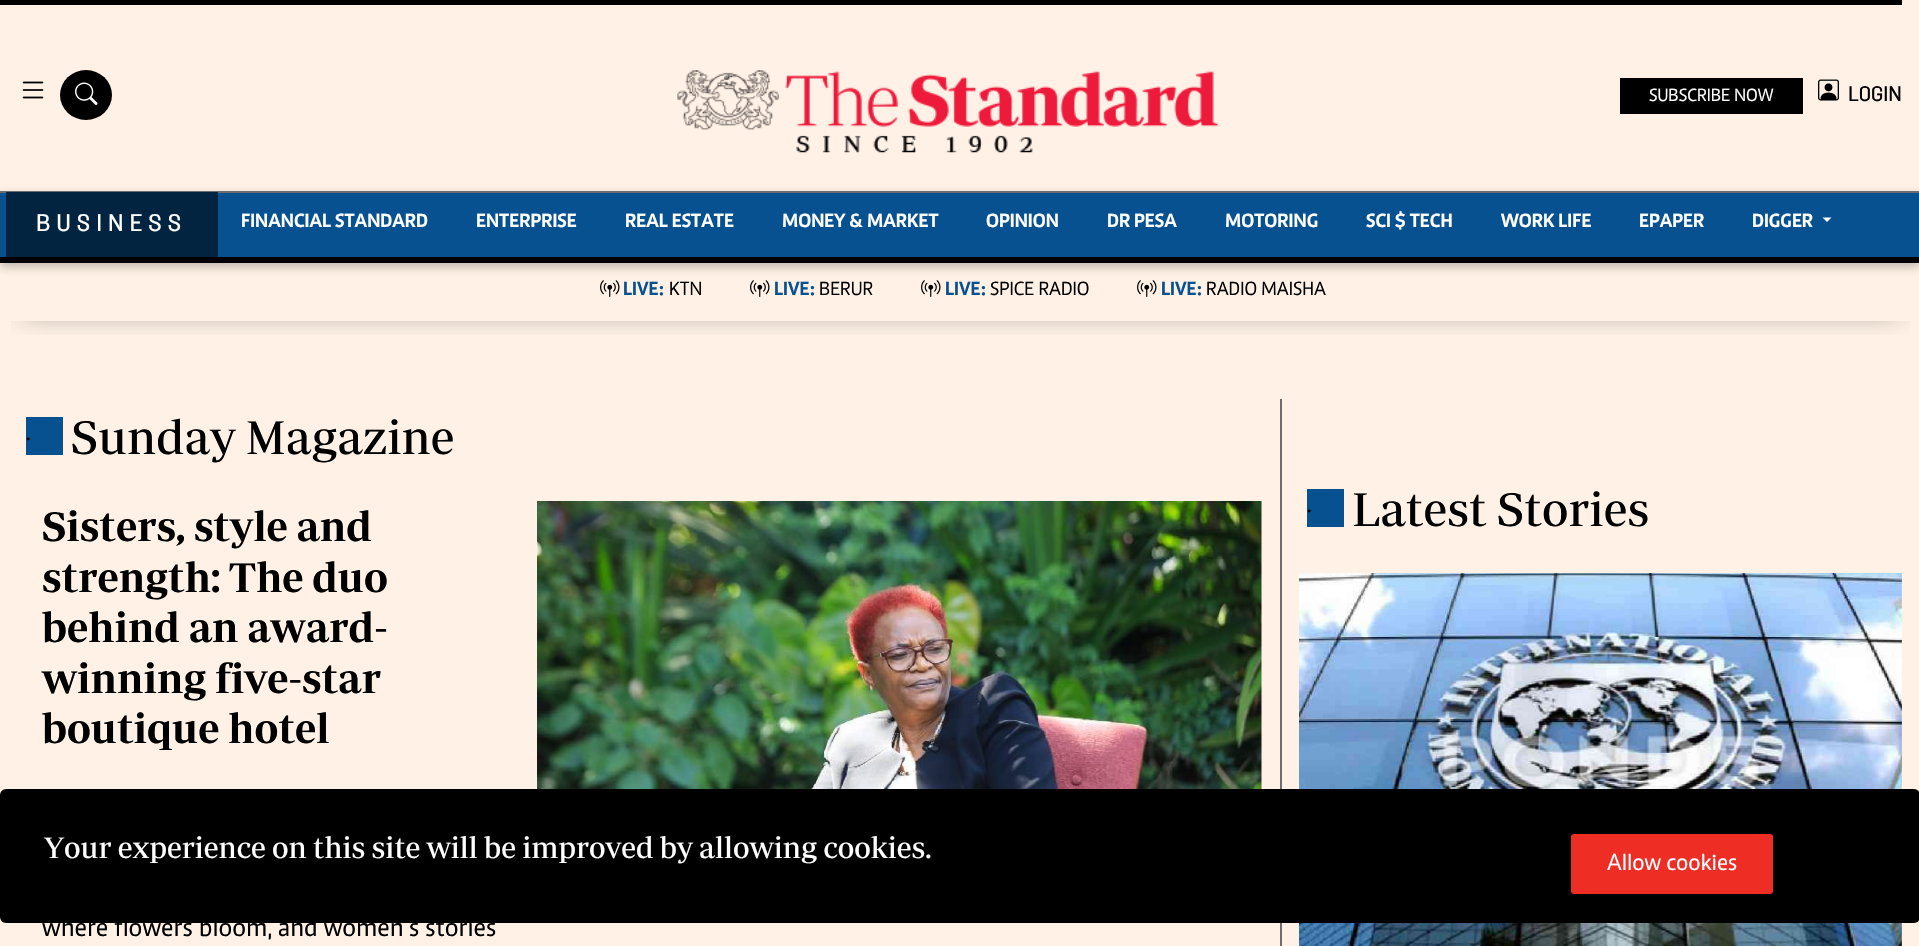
static SkFont makeFont(const char* family, int weight, float size, bool italic = false) {
  SkFontStyle style(weight, SkFontStyle::kNormal_Width,
    italic ? SkFontStyle::kItalic_Slant : SkFontStyle::kUpright_Slant);
  SkFont result(fontMgr->matchFamilyStyle(family, style), size);
  result.setSubpixel(true);
  return result;
}

static void text(SkCanvas* c, const char* s, float x, float y, const SkFont& font, SkColor color) {
  SkPaint ink(SkColor4f::FromColor(color));
  ink.setAntiAlias(true);
  c->drawString(s, x, y, font, ink);
}

static void spacedText(SkCanvas* c, const char* s, float x, float y, const SkFont& font, const SkPaint& ink, float letter, float word) {
  std::vector<SkGlyphID> glyphs(font.countText(s, strlen(s), SkTextEncoding::kUTF8));
  std::vector<float> xs(glyphs.size());
  font.textToGlyphs(s, strlen(s), SkTextEncoding::kUTF8, glyphs);
  font.getXPos(glyphs, xs, x);
  float extra = 0;
  for (size_t i = 0; i < glyphs.size(); i++) {
    xs[i] += extra;
    extra += letter + word * (glyphs[i] == font.unicharToGlyph(' '));
  }
  c->drawTextBlob(SkTextBlob::MakeFromPosHGlyphs(glyphs, xs, y, font), 0, 0, ink);
}

static void box(SkCanvas* c, float l, float t, float r, float b, SkColor color) {
  SkPaint ink(SkColor4f::FromColor(color));
  ink.setAntiAlias(true);
  c->drawRect(SkRect::MakeLTRB(l, t, r, b), ink);
}

static void roundBox(SkCanvas* c, float l, float t, float r, float b, float radius, SkColor color) {
  SkPaint ink(SkColor4f::FromColor(color));
  ink.setAntiAlias(true);
  c->drawRoundRect(SkRect::MakeLTRB(l, t, r, b), radius, radius, ink);
}

static void picture(SkCanvas* c, const char* path, float l, float t, float r, float b) {
  auto image = SkImages::DeferredFromEncodedData(SkData::MakeFromFileName(path));
  c->drawImageRect(image, SkRect::MakeLTRB(l, t, r, b), SkSamplingOptions());
}

void draw(SkCanvas* c) {
  SkPaint paint;
  paint.setAntiAlias(true);
  c->clear(0xfffff1e5);
  picture(c, "img_01.png", 22, 81, 44, 99);
  paint.setColor(0xff000000);
  c->drawOval(SkRect::MakeLTRB(60, 70, 112, 120), paint);
  picture(c, "img_02.png", 75, 82, 98, 105);
  picture(c, "img_03.png", 677, 70, 1218, 153);
  box(c, 1620, 78, 1803, 114, 0xff000000);
  SkFont face1 = makeFont("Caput", 400, 18);
  text(c, "SUBSCRIBE NOW", 1649, 101, face1, 0xffffffff);
  picture(c, "img_04.png", 1818, 79, 1839, 101);
  SkFont face2 = makeFont("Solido", 500, 21);
  text(c, "LOGIN", 1848, 101, face2, 0xff000000);
  box(c, 0, 193, 1919, 257, 0xff075190);
  c->save();
  c->clipPath(SkPathBuilder(SkPathFillType::kEvenOdd).moveTo(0, 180).lineTo(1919, 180).lineTo(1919, 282).lineTo(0, 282).close().moveTo(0, 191).lineTo(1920, 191).lineTo(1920, 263).lineTo(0, 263).close().detach(), true);
  paint.setColor(0x47202124);
  paint.setMaskFilter(SkMaskFilter::MakeBlur(kNormal_SkBlurStyle, 4.5f));
  c->drawRect(SkRect::MakeLTRB(0, 195, 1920, 267), paint);
  paint.setMaskFilter(nullptr);
  c->restore();
  box(c, 0, 191, 1919, 193, 0xff6e6d6d);
  box(c, 0, 257, 1919, 263, 0xff000000);
  box(c, 0, 0, 1902, 5, 0xff000000);
  box(c, 6, 192, 218, 257, 0xff022441);
  SkFont face3 = makeFont("Solido", 500, 24);
  paint.setColor(0xffffffff);
  spacedText(c, "BUSINESS", 36, 231, face3, paint, 6, 0);
  SkFont face4 = makeFont("Caput", 700, 19.5f);
  text(c, "FINANCIAL STANDARD", 241, 227, face4, 0xffffffff);
  text(c, "ENTERPRISE", 476, 227, face4, 0xffffffff);
  text(c, "REAL ESTATE", 625, 227, face4, 0xffffffff);
  text(c, "MONEY & MARKET", 782, 227, face4, 0xffffffff);
  text(c, "OPINION", 986, 227, face4, 0xffffffff);
  text(c, "DR PESA", 1107, 227, face4, 0xffffffff);
  text(c, "MOTORING", 1225, 227, face4, 0xffffffff);
  text(c, "SCI $ TECH", 1366, 227, face4, 0xffffffff);
  text(c, "WORK LIFE", 1501, 227, face4, 0xffffffff);
  text(c, "EPAPER", 1639, 227, face4, 0xffffffff);
  text(c, "DIGGER", 1752, 227, face4, 0xffffffff);
  c->drawPath(SkPathBuilder().moveTo(1822.5f, 217.5f).lineTo(1831.5f, 217.5f).lineTo(1827, 222).close().detach(), paint);
  c->save();
  c->clipRect(SkRect::MakeLTRB(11, 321, 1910, 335));
  paint.setColor(0x8f000000);
  paint.setMaskFilter(SkMaskFilter::MakeBlur(kNormal_SkBlurStyle, 13.5f));
  c->drawRect(SkRect::MakeLTRB(23, 297, 1898, 311), paint);
  paint.setMaskFilter(nullptr);
  c->restore();
  picture(c, "img_05.png", 600, 280, 620, 297);
  text(c, "LIVE:", 623, 295, face4, 0xff075190);
  SkFont face5 = makeFont("Caput", 400, 19.5f);
  text(c, "KTN", 669, 295, face5, 0xff000000);
  picture(c, "img_05.png", 750, 280, 770, 297);
  text(c, "LIVE:", 774, 295, face4, 0xff075190);
  text(c, "BERUR", 819, 295, face5, 0xff000000);
  picture(c, "img_05.png", 921, 280, 941, 297);
  text(c, "LIVE:", 945, 295, face4, 0xff075190);
  text(c, "SPICE RADIO", 990, 295, face5, 0xff000000);
  picture(c, "img_05.png", 1137, 280, 1157, 297);
  text(c, "LIVE:", 1161, 295, face4, 0xff075190);
  text(c, "RADIO MAISHA", 1206, 295, face5, 0xff000000);
  box(c, 26, 417, 63, 455, 0xff075190);
  SkFont face6 = makeFont("Caput", 400, 24);
  text(c, ".", 26, 440, face6, 0xff000000);
  SkFont face7 = makeFont("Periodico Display", 400, 48);
  text(c, "Sunday Magazine", 71, 454, face7, 0xff000000);
  SkFont face8 = makeFont("Periodico Display", 600, 42);
  text(c, "Sisters, style and", 42, 541, face8, 0xff000000);
  text(c, "strength: The duo", 42, 592, face8, 0xff000000);
  text(c, "behind an award-", 42, 642, face8, 0xff000000);
  text(c, "winning five-star", 42, 693, face8, 0xff000000);
  text(c, "boutique hotel", 42, 743, face8, 0xff000000);
  SkFont face9 = makeFont("Caput", 400, 27);
  text(c, "where flowers bloom, and women’s stories", 42, 936, face9, 0xff000000);
  picture(c, "img_06.png", 537, 501, 1262, 789);
  box(c, 1280, 399, 1282, 946, 0xff6e6d6d);
  box(c, 1307, 489, 1344, 527, 0xff075190);
  text(c, ".", 1307, 512, face6, 0xff000000);
  text(c, "Latest Stories", 1352, 526, face7, 0xff000000);
  picture(c, "img_07.png", 1299, 573, 1902, 946);
  roundBox(c, 0, 789, 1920, 923, 6, 0xff000000);
  SkFont face10 = makeFont("Periodico Display", 400, 30);
  text(c, "Your experience on this site will be improved by allowing cookies.", 44, 858, face10, 0xffffffff);
  paint.setColor(0xffee2e24);
  c->drawRoundRect(SkRect::MakeLTRB(1569.5f, 832.5f, 1774.5f, 895.5f), 4.5f, 4.5f, paint);
  paint.setStyle(SkPaint::kStroke_Style);
  paint.setStrokeWidth(3);
  paint.setColor(0xff000000);
  c->drawRoundRect(SkRect::MakeLTRB(1569.5f, 832.5f, 1774.5f, 895.5f), 4.5f, 4.5f, paint);
  text(c, "Allow cookies", 1607, 870, face6, 0xffffffff);
}
